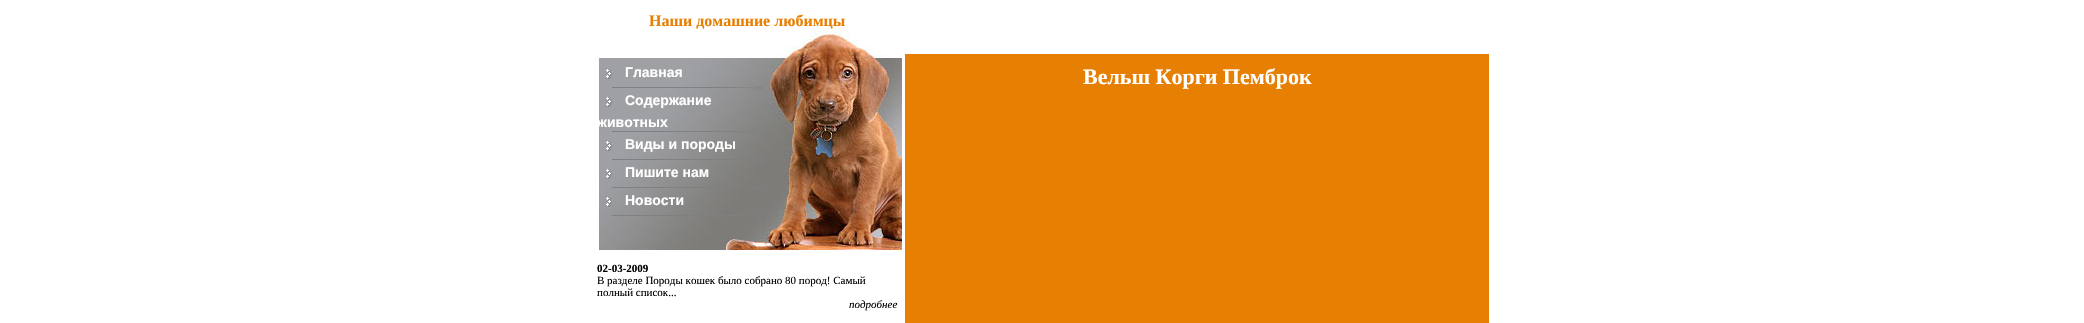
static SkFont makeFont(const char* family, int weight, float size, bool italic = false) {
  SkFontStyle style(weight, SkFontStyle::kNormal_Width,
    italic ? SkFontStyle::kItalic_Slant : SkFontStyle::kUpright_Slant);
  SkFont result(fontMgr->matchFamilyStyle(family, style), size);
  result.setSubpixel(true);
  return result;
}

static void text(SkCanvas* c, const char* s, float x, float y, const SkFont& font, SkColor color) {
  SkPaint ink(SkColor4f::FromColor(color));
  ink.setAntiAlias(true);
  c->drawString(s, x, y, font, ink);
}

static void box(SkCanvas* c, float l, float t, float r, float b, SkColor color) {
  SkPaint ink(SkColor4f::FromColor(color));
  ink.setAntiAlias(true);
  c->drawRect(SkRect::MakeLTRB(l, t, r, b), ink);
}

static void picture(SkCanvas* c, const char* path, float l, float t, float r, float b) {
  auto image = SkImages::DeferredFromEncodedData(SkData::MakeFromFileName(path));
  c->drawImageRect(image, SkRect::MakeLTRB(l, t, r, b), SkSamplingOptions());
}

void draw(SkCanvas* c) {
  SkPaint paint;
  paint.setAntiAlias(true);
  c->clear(0xffffffff);
  SkFont face1 = makeFont("Liberation Serif", 700, 16);
  text(c, "Наши домашние любимцы", 649, 26, face1, 0xffe77f02);
  picture(c, "img_01.png", 594, 56, 762, 250);
  picture(c, "img_02.png", 606, 69, 613, 80);
  SkFont face2 = makeFont("Liberation Sans", 700, 14);
  text(c, "Главная", 625, 77, face2, 0xffffffff);
  picture(c, "img_03.png", 612, 86, 762, 90);
  picture(c, "img_02.png", 606, 97, 613, 108);
  text(c, "Содержание", 625, 105, face2, 0xffffffff);
  text(c, "животных", 597, 127, face2, 0xffffffff);
  picture(c, "img_04.png", 612, 130, 755, 133);
  picture(c, "img_02.png", 606, 141, 613, 152);
  text(c, "Виды и породы", 625, 149, face2, 0xffffffff);
  picture(c, "img_05.png", 612, 158, 762, 162);
  picture(c, "img_06.png", 606, 169, 613, 180);
  text(c, "Пишите нам", 625, 177, face2, 0xffffffff);
  picture(c, "img_07.png", 612, 186, 762, 190);
  picture(c, "img_08.png", 606, 197, 612, 207);
  text(c, "Новости", 625, 205, face2, 0xffffffff);
  picture(c, "img_09.png", 612, 214, 762, 218);
  picture(c, "img_10.png", 762, 30, 902, 250);
  SkFont face3 = makeFont("Liberation Serif", 700, 11);
  text(c, "02-03-2009", 597, 272, face3, 0xff000000);
  SkFont face4 = makeFont("Liberation Serif", 400, 11);
  text(c, "В разделе Породы кошек было собрано 80 пород! Самый", 597, 284, face4, 0xff000000);
  text(c, "полный список...", 597, 296, face4, 0xff000000);
  SkFont face5 = makeFont("Liberation Serif", 400, 11, true);
  text(c, "подробнее", 849, 308, face5, 0xff000000);
  box(c, 905, 54, 1489, 323, 0xffe77f02);
  SkFont face6 = makeFont("Liberation Serif", 700, 22);
  text(c, "Вельш Корги Пемброк", 1083, 84, face6, 0xffffffff);
}
